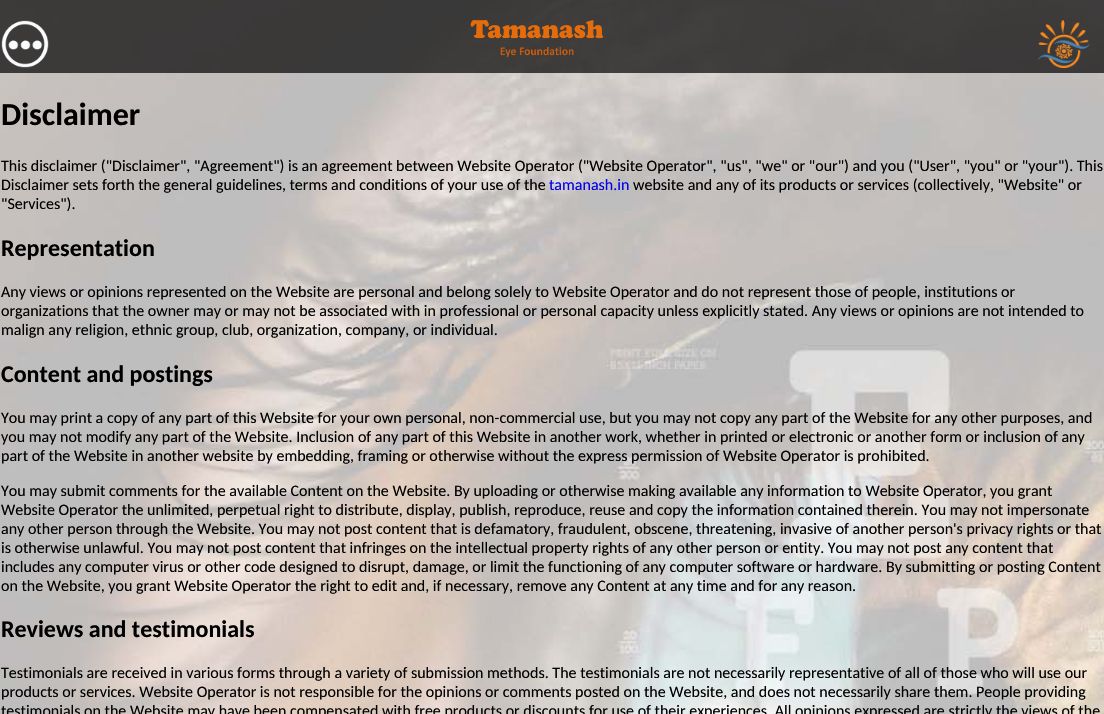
static SkFont makeFont(const char* family, int weight, float size, bool italic = false) {
  SkFontStyle style(weight, SkFontStyle::kNormal_Width,
    italic ? SkFontStyle::kItalic_Slant : SkFontStyle::kUpright_Slant);
  SkFont result(fontMgr->matchFamilyStyle(family, style), size);
  result.setSubpixel(true);
  return result;
}

static void text(SkCanvas* c, const char* s, float x, float y, const SkFont& font, SkColor color) {
  SkPaint ink(SkColor4f::FromColor(color));
  ink.setAntiAlias(true);
  c->drawString(s, x, y, font, ink);
}

static void box(SkCanvas* c, float l, float t, float r, float b, SkColor color) {
  SkPaint ink(SkColor4f::FromColor(color));
  ink.setAntiAlias(true);
  c->drawRect(SkRect::MakeLTRB(l, t, r, b), ink);
}

static void picture(SkCanvas* c, const char* path, float l, float t, float r, float b) {
  auto image = SkImages::DeferredFromEncodedData(SkData::MakeFromFileName(path));
  c->drawImageRect(image, SkRect::MakeLTRB(l, t, r, b), SkSamplingOptions());
}

void draw(SkCanvas* c) {
  SkPaint paint;
  paint.setAntiAlias(true);
  c->clear(0xffffffff);
  picture(c, "img_01.png", 0, 0, 1104, 714);
  box(c, 0, 0, 50, 73, 0xb3000000);
  picture(c, "img_02.png", 1, 20, 49, 68);
  box(c, 50, 0, 1024, 73, 0xb3000000);
  picture(c, "img_03.png", 470, 19, 604, 57);
  box(c, 1024, 0, 1104, 73, 0xb3000000);
  picture(c, "img_04.png", 1038, 20, 1090, 68);
  SkFont face1 = makeFont("Carlito", 700, 32);
  text(c, "Disclaimer", 1, 125, face1, 0xff000000);
  SkFont face2 = makeFont("Carlito", 400, 16);
  text(c, "This disclaimer (\"Disclaimer\", \"Agreement\") is an agreement between Website Operator (\"Website Operator\", \"us\", \"we\" or \"our\") and you (\"User\", \"you\" or \"your\"). This", 1, 171, face2, 0xff000000);
  text(c, "Disclaimer sets forth the general guidelines, terms and conditions of your use of the", 1, 190, face2, 0xff000000);
  text(c, "tamanash.in", 549, 190, face2, 0xff0000ee);
  text(c, "website and any of its products or services (collectively, \"Website\" or", 633, 190, face2, 0xff000000);
  text(c, "\"Services\").", 1, 209, face2, 0xff000000);
  SkFont face3 = makeFont("Carlito", 700, 24);
  text(c, "Representation", 1, 256, face3, 0xff000000);
  text(c, "Any views or opinions represented on the Website are personal and belong solely to Website Operator and do not represent those of people, institutions or", 1, 297, face2, 0xff000000);
  text(c, "organizations that the owner may or may not be associated with in professional or personal capacity unless explicitly stated. Any views or opinions are not intended to", 1, 316, face2, 0xff000000);
  text(c, "malign any religion, ethnic group, club, organization, company, or individual.", 1, 335, face2, 0xff000000);
  text(c, "Content and postings", 1, 382, face3, 0xff000000);
  text(c, "You may print a copy of any part of this Website for your own personal, non-commercial use, but you may not copy any part of the Website for any other purposes, and", 1, 423, face2, 0xff000000);
  text(c, "you may not modify any part of the Website. Inclusion of any part of this Website in another work, whether in printed or electronic or another form or inclusion of any", 1, 442, face2, 0xff000000);
  text(c, "part of the Website in another website by embedding, framing or otherwise without the express permission of Website Operator is prohibited.", 1, 461, face2, 0xff000000);
  text(c, "You may submit comments for the available Content on the Website. By uploading or otherwise making available any information to Website Operator, you grant", 1, 496, face2, 0xff000000);
  text(c, "Website Operator the unlimited, perpetual right to distribute, display, publish, reproduce, reuse and copy the information contained therein. You may not impersonate", 1, 515, face2, 0xff000000);
  text(c, "any other person through the Website. You may not post content that is defamatory, fraudulent, obscene, threatening, invasive of another person's privacy rights or that", 1, 534, face2, 0xff000000);
  text(c, "is otherwise unlawful. You may not post content that infringes on the intellectual property rights of any other person or entity. You may not post any content that", 1, 553, face2, 0xff000000);
  text(c, "includes any computer virus or other code designed to disrupt, damage, or limit the functioning of any computer software or hardware. By submitting or posting Content", 1, 572, face2, 0xff000000);
  text(c, "on the Website, you grant Website Operator the right to edit and, if necessary, remove any Content at any time and for any reason.", 1, 591, face2, 0xff000000);
  text(c, "Reviews and testimonials", 1, 637, face3, 0xff000000);
  text(c, "Testimonials are received in various forms through a variety of submission methods. The testimonials are not necessarily representative of all of those who will use our", 1, 678, face2, 0xff000000);
  text(c, "products or services. Website Operator is not responsible for the opinions or comments posted on the Website, and does not necessarily share them. People providing", 1, 697, face2, 0xff000000);
  text(c, "testimonials on the Website may have been compensated with free products or discounts for use of their experiences. All opinions expressed are strictly the views of the", 1, 716, face2, 0xff000000);
}
